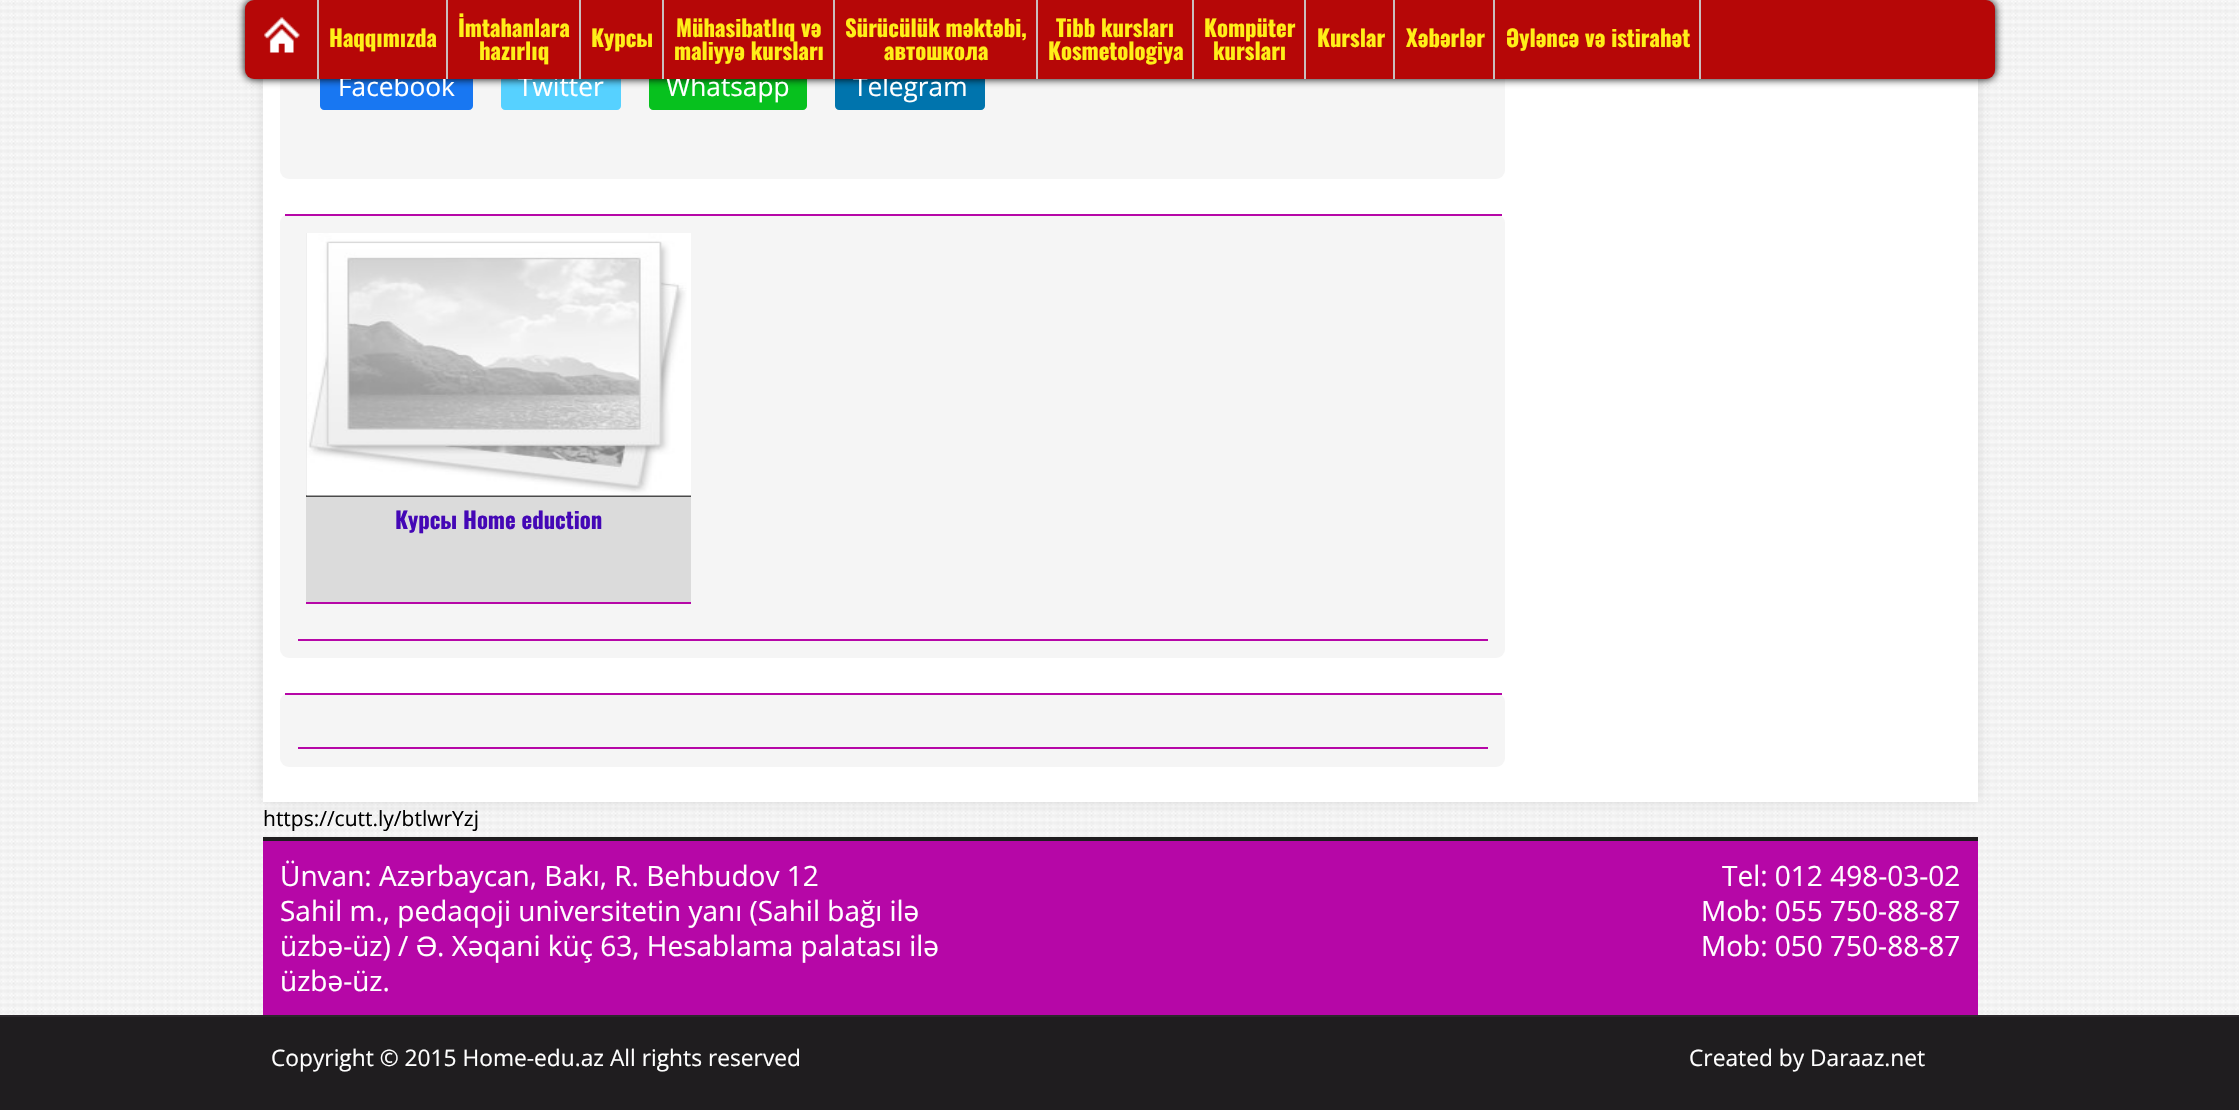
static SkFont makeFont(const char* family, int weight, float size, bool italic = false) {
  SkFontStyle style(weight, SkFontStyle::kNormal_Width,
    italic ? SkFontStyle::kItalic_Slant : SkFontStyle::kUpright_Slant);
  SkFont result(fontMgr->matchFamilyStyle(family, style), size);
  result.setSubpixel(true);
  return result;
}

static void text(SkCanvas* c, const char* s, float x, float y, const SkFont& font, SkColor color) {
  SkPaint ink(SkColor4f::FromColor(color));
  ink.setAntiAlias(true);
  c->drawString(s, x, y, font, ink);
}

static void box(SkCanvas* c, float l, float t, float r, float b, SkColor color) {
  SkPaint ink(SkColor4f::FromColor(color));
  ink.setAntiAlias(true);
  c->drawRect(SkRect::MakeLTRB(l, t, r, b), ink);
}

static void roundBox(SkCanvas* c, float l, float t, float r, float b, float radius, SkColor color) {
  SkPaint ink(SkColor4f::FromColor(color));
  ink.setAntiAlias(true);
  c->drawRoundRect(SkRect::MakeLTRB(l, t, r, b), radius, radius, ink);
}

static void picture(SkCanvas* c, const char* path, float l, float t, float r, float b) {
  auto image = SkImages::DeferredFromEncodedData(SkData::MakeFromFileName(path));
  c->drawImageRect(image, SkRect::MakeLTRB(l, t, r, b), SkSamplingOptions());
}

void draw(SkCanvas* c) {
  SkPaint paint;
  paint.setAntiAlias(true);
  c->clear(0xffffffff);
  picture(c, "img_01.png", 0, 0, 2239, 1015);
  paint.setColor(0x1a000000);
  paint.setMaskFilter(SkMaskFilter::MakeBlur(kNormal_SkBlurStyle, 6));
  c->drawRoundRect(SkRect::MakeLTRB(263, -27, 1978, 802), 9, 9, paint);
  paint.setMaskFilter(nullptr);
  box(c, 263, 79, 1978, 802, 0xffffffff);
  roundBox(c, 280, -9, 1505, 179, 9, 0xfff5f5f5);
  paint.setColor(0xff1877f2);
  c->drawPath(SkPathBuilder().moveTo(324, 61).lineTo(338, 61).lineTo(338, 110).lineTo(324, 110).cubicTo(322, 110, 320, 108, 320, 106).lineTo(320, 65).cubicTo(320, 63, 322, 61, 324, 61).close().detach(), paint);
  c->drawPath(SkPathBuilder().moveTo(338, 61).lineTo(469, 61).cubicTo(471, 61, 473, 63, 473, 65).lineTo(473, 106).cubicTo(473, 108, 471, 110, 469, 110).lineTo(338, 110).close().detach(), paint);
  paint.setColor(0xff56d1ff);
  c->drawPath(SkPathBuilder().moveTo(505, 61).lineTo(518, 61).lineTo(518, 110).lineTo(505, 110).cubicTo(503, 110, 501, 108, 501, 106).lineTo(501, 65).cubicTo(501, 63, 503, 61, 505, 61).close().detach(), paint);
  c->drawPath(SkPathBuilder().moveTo(518, 61).lineTo(617, 61).cubicTo(619, 61, 621, 63, 621, 65).lineTo(621, 106).cubicTo(621, 108, 619, 110, 617, 110).lineTo(518, 110).close().detach(), paint);
  paint.setColor(0xff07c11e);
  c->drawPath(SkPathBuilder().moveTo(653, 61).lineTo(667, 61).lineTo(667, 110).lineTo(653, 110).cubicTo(651, 110, 649, 108, 649, 106).lineTo(649, 65).cubicTo(649, 63, 651, 61, 653, 61).close().detach(), paint);
  c->drawPath(SkPathBuilder().moveTo(667, 61).lineTo(803, 61).cubicTo(805, 61, 807, 63, 807, 65).lineTo(807, 106).cubicTo(807, 108, 805, 110, 803, 110).lineTo(667, 110).close().detach(), paint);
  paint.setColor(0xff0074ad);
  c->drawPath(SkPathBuilder().moveTo(839, 61).lineTo(852, 61).lineTo(852, 110).lineTo(839, 110).cubicTo(837, 110, 835, 108, 835, 106).lineTo(835, 65).cubicTo(835, 63, 837, 61, 839, 61).close().detach(), paint);
  c->drawPath(SkPathBuilder().moveTo(852, 61).lineTo(981, 61).cubicTo(983, 61, 985, 63, 985, 65).lineTo(985, 106).cubicTo(985, 108, 983, 110, 981, 110).lineTo(852, 110).close().detach(), paint);
  paint.setColor(0xff000000);
  paint.setMaskFilter(SkMaskFilter::MakeBlur(kNormal_SkBlurStyle, 4.5f));
  c->drawRoundRect(SkRect::MakeLTRB(245, 0, 1995, 79), 9, 9, paint);
  paint.setMaskFilter(nullptr);
  SkFont face1 = makeFont("Open Sans", 400, 26.25f);
  text(c, "Facebook", 338, 96, face1, 0xffffffff);
  text(c, "Twitter", 518, 96, face1, 0xffffffff);
  text(c, "Whatsapp", 666, 96, face1, 0xffffffff);
  text(c, "Telegram", 853, 96, face1, 0xffffffff);
  roundBox(c, 245, 0, 1995, 79, 9, 0xffb60707);
  box(c, 317, 0, 319, 79, 0xffcabebe);
  picture(c, "img_02.png", 264, 17, 300, 53);
  box(c, 446, 0, 448, 79, 0xffcabebe);
  SkFont face2 = makeFont("Oswald", 700, 22.75f);
  text(c, "Haqqımızda", 329, 47, face2, 0xffffef18);
  box(c, 579, 0, 581, 79, 0xffcabebe);
  text(c, "İmtahanlara", 458, 37, face2, 0xffffef18);
  text(c, "hazırlıq", 479, 60, face2, 0xffffef18);
  box(c, 662, 0, 664, 79, 0xffcabebe);
  text(c, "Курсы", 591, 47, face2, 0xffffef18);
  box(c, 833, 0, 835, 79, 0xffcabebe);
  text(c, "Mühasibatlıq və", 676, 37, face2, 0xffffef18);
  text(c, "maliyyə kursları", 674, 60, face2, 0xffffef18);
  box(c, 1036, 0, 1038, 79, 0xffcabebe);
  text(c, "Sürücülük məktəbi,", 845, 37, face2, 0xffffef18);
  text(c, "автошкола", 884, 60, face2, 0xffffef18);
  box(c, 1192, 0, 1194, 79, 0xffcabebe);
  text(c, "Tibb kursları", 1056, 37, face2, 0xffffef18);
  text(c, "Kosmetologiya", 1048, 60, face2, 0xffffef18);
  box(c, 1304, 0, 1306, 79, 0xffcabebe);
  text(c, "Kompüter", 1204, 37, face2, 0xffffef18);
  text(c, "kursları", 1213, 60, face2, 0xffffef18);
  box(c, 1393, 0, 1395, 79, 0xffcabebe);
  text(c, "Kurslar", 1317, 47, face2, 0xffffef18);
  box(c, 1493, 0, 1495, 79, 0xffcabebe);
  text(c, "Xəbərlər", 1406, 47, face2, 0xffffef18);
  box(c, 1699, 0, 1701, 79, 0xffcabebe);
  text(c, "Əyləncə və istirahət", 1506, 47, face2, 0xffffef18);
  roundBox(c, 280, 214, 1505, 658, 9, 0xfff5f5f5);
  box(c, 285, 214, 1502, 216, 0xffb607a7);
  box(c, 306, 233, 691, 602, 0xffdbdbdb);
  box(c, 306, 495, 691, 497, 0xff4a4a4a);
  picture(c, "img_03.png", 306, 233, 691, 496);
  text(c, "Курсы Home eduction", 395, 529, face2, 0xff4407b6);
  box(c, 306, 602, 691, 604, 0xffb607a7);
  box(c, 298, 639, 1488, 641, 0xffb607a7);
  roundBox(c, 280, 693, 1505, 767, 9, 0xfff5f5f5);
  box(c, 285, 693, 1502, 695, 0xffb607a7);
  box(c, 298, 747, 1488, 749, 0xffb607a7);
  SkFont face3 = makeFont("Open Sans", 400, 21);
  text(c, "https://cutt.ly/btlwrYzj", 263, 826, face3, 0xff000000);
  box(c, 263, 841, 1978, 1015, 0xffb607a7);
  box(c, 263, 837, 1978, 841, 0xff1f1d1f);
  SkFont face4 = makeFont("Open Sans", 400, 28);
  text(c, "Ünvan: Azərbaycan, Bakı, R. Behbudov 12", 280, 886, face4, 0xffffffff);
  text(c, "Sahil m., pedaqoji universitetin yanı (Sahil bağı ilə", 280, 921, face4, 0xffffffff);
  text(c, "üzbə-üz) /", 280, 956, face4, 0xffffffff);
  SkFont face5 = makeFont("Liberation Sans", 400, 28);
  text(c, "Ə", 416, 956, face5, 0xffffffff);
  text(c, ". Xəqani küç 63, Hesablama palatası ilə", 437, 956, face4, 0xffffffff);
  text(c, "üzbə-üz.", 280, 991, face4, 0xffffffff);
  text(c, "Tel: 012 498-03-02", 1722, 886, face4, 0xffffffff);
  text(c, "Mob: 055 750-88-87", 1701, 921, face4, 0xffffffff);
  text(c, "Mob: 050 750-88-87", 1701, 956, face4, 0xffffffff);
  box(c, 0, 1017, 2239, 1110, 0xff1f1d1f);
  box(c, 0, 1015, 2239, 1017, 0xff2b272b);
  SkFont face6 = makeFont("Open Sans", 400, 22.75f);
  text(c, "Copyright © 2015 Home-edu.az All rights reserved", 271, 1066, face6, 0xffffffff);
  text(c, "Created by Daraaz.net", 1689, 1066, face6, 0xffffffff);
}
